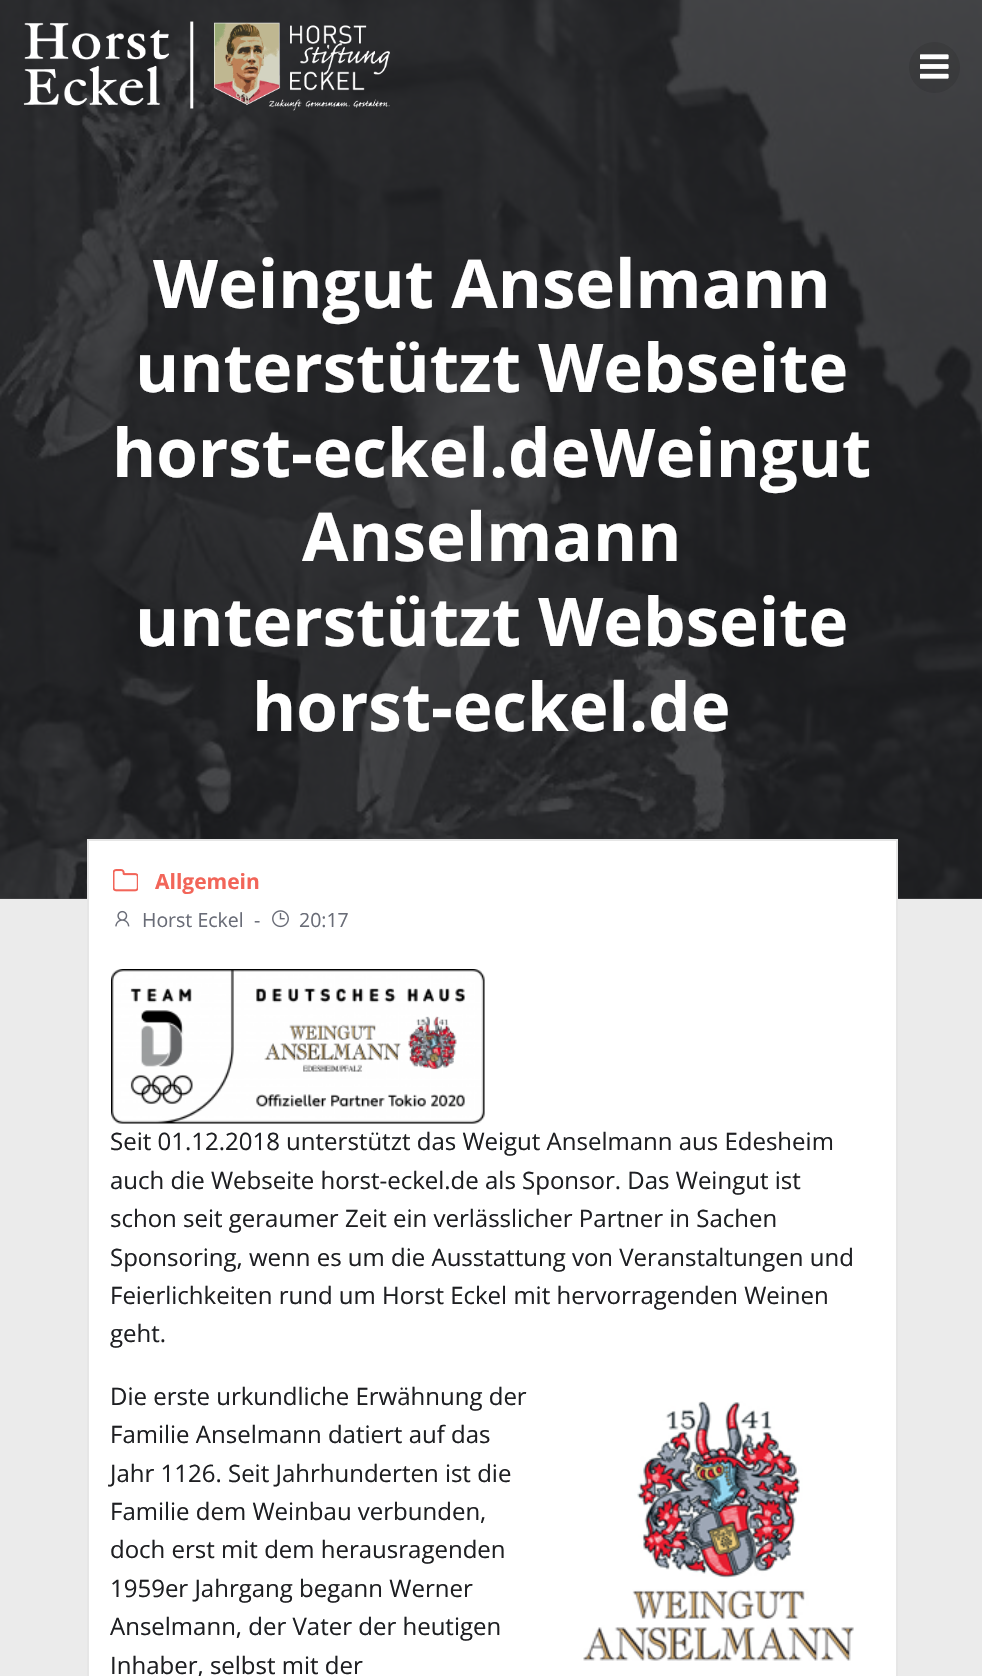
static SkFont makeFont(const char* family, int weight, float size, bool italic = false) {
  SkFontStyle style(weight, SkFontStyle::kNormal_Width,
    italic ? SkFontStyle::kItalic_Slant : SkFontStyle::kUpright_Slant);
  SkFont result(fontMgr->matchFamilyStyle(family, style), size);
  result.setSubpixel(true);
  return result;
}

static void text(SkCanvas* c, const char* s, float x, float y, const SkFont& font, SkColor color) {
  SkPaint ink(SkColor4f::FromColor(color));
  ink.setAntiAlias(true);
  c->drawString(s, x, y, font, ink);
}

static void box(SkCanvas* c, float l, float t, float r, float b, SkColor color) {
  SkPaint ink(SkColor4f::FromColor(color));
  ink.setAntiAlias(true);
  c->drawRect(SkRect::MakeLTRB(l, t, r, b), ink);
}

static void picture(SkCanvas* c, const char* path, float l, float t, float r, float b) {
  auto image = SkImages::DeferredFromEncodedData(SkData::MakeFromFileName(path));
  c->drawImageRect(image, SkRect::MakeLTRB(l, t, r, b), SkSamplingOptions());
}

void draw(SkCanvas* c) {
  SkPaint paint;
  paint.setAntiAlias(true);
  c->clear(0xff4b4c4e);
  picture(c, "img_03.png", 0, 0, 982, 899);
  picture(c, "img_01.png", 23, 21, 390, 111);
  paint.setColor(0x1a000000);
  c->drawCircle(934.5f, 67.5f, 25.5f, paint);
  picture(c, "img_02.png", 920, 54, 949, 79);
  SkFont face1 = makeFont("Open Sans", 700, 67.25f);
  text(c, "Weingut Anselmann", 153, 308, face1, 0xffffffff);
  text(c, "unterstützt Webseite", 135, 392, face1, 0xffffffff);
  text(c, "horst-eckel.deWeingut", 112, 477, face1, 0xffffffff);
  text(c, "Anselmann", 302, 561, face1, 0xffffffff);
  text(c, "unterstützt Webseite", 135, 646, face1, 0xffffffff);
  text(c, "horst-eckel.de", 252, 731, face1, 0xffffffff);
  box(c, 0, 899, 982, 1676, 0xffebebeb);
  box(c, 89, 841, 896, 1676, 0xffffffff);
  box(c, 87, 839, 897, 841, 0xffe6e6e6);
  box(c, 896, 839, 898, 1676, 0xffe6e6e6);
  box(c, 87, 839, 89, 1676, 0xffe6e6e6);
  picture(c, "img_04.png", 113, 869, 138, 892);
  SkFont face2 = makeFont("Open Sans", 700, 21);
  text(c, "Allgemein", 155, 889, face2, 0xfff26559);
  picture(c, "img_05.png", 115, 910, 130, 927);
  SkFont face3 = makeFont("Open Sans", 400, 19.5f);
  text(c, "Horst Eckel", 142, 927, face3, 0xff696c77);
  text(c, "-", 254, 927, face3, 0xff696c77);
  picture(c, "img_06.png", 272, 910, 289, 928);
  text(c, "20:17", 299, 927, face3, 0xff696c77);
  picture(c, "img_07.png", 111, 969, 485, 1124);
  SkFont face4 = makeFont("Open Sans", 400, 24);
  text(c, "Seit 01.12.2018 unterstützt das Weigut Anselmann aus Edesheim", 110, 1150, face4, 0xff1e1f22);
  text(c, "auch die Webseite horst-eckel.de als Sponsor. Das Weingut ist", 110, 1189, face4, 0xff1e1f22);
  text(c, "schon seit geraumer Zeit ein verlässlicher Partner in Sachen", 110, 1227, face4, 0xff1e1f22);
  text(c, "Sponsoring, wenn es um die Ausstattung von Veranstaltungen und", 110, 1266, face4, 0xff1e1f22);
  text(c, "Feierlichkeiten rund um Horst Eckel mit hervorragenden Weinen", 110, 1304, face4, 0xff1e1f22);
  text(c, "geht.", 110, 1342, face4, 0xff1e1f22);
  text(c, "Die erste urkundliche Erwähnung der", 110, 1405, face4, 0xff1e1f22);
  text(c, "Familie Anselmann datiert auf das", 110, 1443, face4, 0xff1e1f22);
  picture(c, "img_08.png", 583, 1401, 854, 1661);
  text(c, "Jahr 1126. Seit Jahrhunderten ist die", 110, 1482, face4, 0xff1e1f22);
  text(c, "Familie dem Weinbau verbunden,", 110, 1520, face4, 0xff1e1f22);
  text(c, "doch erst mit dem herausragenden", 110, 1558, face4, 0xff1e1f22);
  text(c, "1959er Jahrgang begann Werner", 110, 1597, face4, 0xff1e1f22);
  text(c, "Anselmann, der Vater der heutigen", 110, 1635, face4, 0xff1e1f22);
  text(c, "Inhaber, selbst mit der", 110, 1674, face4, 0xff1e1f22);
}
